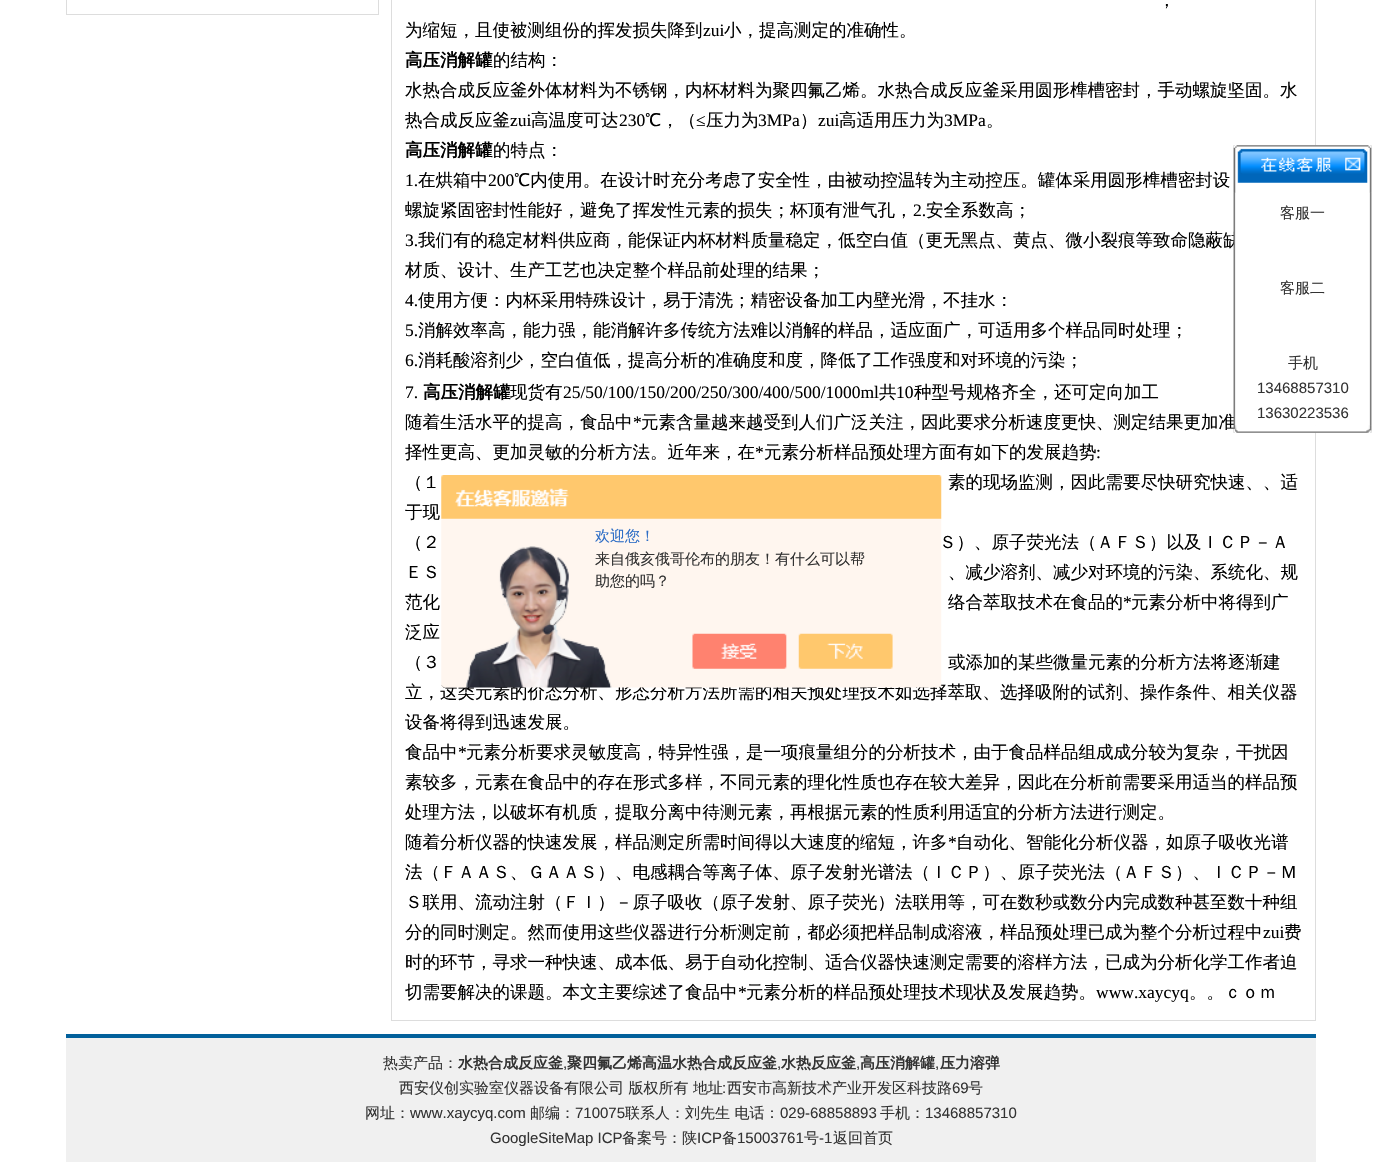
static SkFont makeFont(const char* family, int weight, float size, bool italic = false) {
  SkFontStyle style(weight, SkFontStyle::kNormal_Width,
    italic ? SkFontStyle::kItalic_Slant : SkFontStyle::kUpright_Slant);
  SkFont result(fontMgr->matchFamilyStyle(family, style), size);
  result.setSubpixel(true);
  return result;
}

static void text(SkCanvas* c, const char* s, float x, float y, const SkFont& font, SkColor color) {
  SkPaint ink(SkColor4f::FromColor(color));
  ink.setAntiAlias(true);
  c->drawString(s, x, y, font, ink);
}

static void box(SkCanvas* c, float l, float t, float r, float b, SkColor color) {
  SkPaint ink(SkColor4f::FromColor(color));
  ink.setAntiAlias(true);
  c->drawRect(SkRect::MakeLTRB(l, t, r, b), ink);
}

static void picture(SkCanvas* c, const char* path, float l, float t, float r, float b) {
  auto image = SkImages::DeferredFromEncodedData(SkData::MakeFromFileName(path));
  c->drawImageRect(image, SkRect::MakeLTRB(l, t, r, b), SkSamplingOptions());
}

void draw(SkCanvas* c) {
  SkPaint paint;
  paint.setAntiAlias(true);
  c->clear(0xffffffff);
  paint.setStyle(SkPaint::kStroke_Style);
  paint.setStrokeWidth(1);
  paint.setColor(0xffdddddd);
  c->drawRect(SkRect::MakeLTRB(66.5f, -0.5f, 378.5f, 14.5f), paint);
  c->drawRect(SkRect::MakeLTRB(391.5f, -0.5f, 1315.5f, 1020.5f), paint);
  SkFont face1 = makeFont("WenQuanYi Zen Hei", 500, 17.5f);
  text(c, "，", 1158, 6, face1, 0xff000000);
  text(c, "为缩短，且使被测组份的挥发损失降到", 405, 36, face1, 0xff000000);
  SkFont face2 = makeFont("Liberation Serif", 400, 17.5f);
  text(c, "zui", 703, 36, face2, 0xff000000);
  text(c, "小，提高测定的准确性。", 724, 36, face1, 0xff000000);
  SkFont face3 = makeFont("WenQuanYi Zen Hei", 700, 17.5f);
  text(c, "高压消解罐", 405, 66, face3, 0xff000000);
  text(c, "的结构：", 493, 66, face1, 0xff000000);
  text(c, "水热合成反应釜外体材料为不锈钢，内杯材料为聚四氟乙烯。水热合成反应釜采用圆形榫槽密封，手动螺旋坚固。水", 405, 96, face1, 0xff000000);
  text(c, "热合成反应釜", 405, 126, face1, 0xff000000);
  text(c, "zui", 510, 126, face2, 0xff000000);
  text(c, "高温度可达", 531, 126, face1, 0xff000000);
  text(c, "230", 619, 126, face2, 0xff000000);
  text(c, "℃，（", 645, 126, face1, 0xff000000);
  text(c, "≤", 696, 126, face2, 0xff000000);
  text(c, "压力为", 706, 126, face1, 0xff000000);
  text(c, "3MPa", 758, 126, face2, 0xff000000);
  text(c, "）", 800, 126, face1, 0xff000000);
  text(c, "zui", 818, 126, face2, 0xff000000);
  text(c, "高适用压力为", 839, 126, face1, 0xff000000);
  text(c, "3MPa", 944, 126, face2, 0xff000000);
  text(c, "。", 986, 126, face1, 0xff000000);
  text(c, "高压消解罐", 405, 156, face3, 0xff000000);
  text(c, "的特点：", 493, 156, face1, 0xff000000);
  text(c, "1.", 405, 186, face2, 0xff000000);
  text(c, "在烘箱中", 418, 186, face1, 0xff000000);
  text(c, "200", 488, 186, face2, 0xff000000);
  text(c, "℃内使用。在设计时充分考虑了安全性，由被动控温转为主动控压。罐体采用圆形榫槽密封设", 514, 186, face1, 0xff000000);
  text(c, "螺旋紧固密封性能好，避免了挥发性元素的损失；杯顶有泄气孔，", 405, 216, face1, 0xff000000);
  text(c, "2.", 913, 216, face2, 0xff000000);
  text(c, "安全系数高；", 926, 216, face1, 0xff000000);
  text(c, "3.", 405, 246, face2, 0xff000000);
  text(c, "我们有的稳定材料供应商，能保证内杯材料质量稳定，低空白值（更无黑点、黄点、微小裂痕等致命隐蔽缺", 418, 246, face1, 0xff000000);
  text(c, "材质、设计、生产工艺也决定整个样品前处理的结果；", 405, 276, face1, 0xff000000);
  text(c, "4.", 405, 306, face2, 0xff000000);
  text(c, "使用方便：内杯采用特殊设计，易于清洗；精密设备加工内壁光滑，不挂水：", 418, 306, face1, 0xff000000);
  text(c, "5.", 405, 336, face2, 0xff000000);
  text(c, "消解效率高，能力强，能消解许多传统方法难以消解的样品，适应面广，可适用多个样品同时处理；", 418, 336, face1, 0xff000000);
  text(c, "6.", 405, 366, face2, 0xff000000);
  text(c, "消耗酸溶剂少，空白值低，提高分析的准确度和度，降低了工作强度和对环境的污染；", 418, 366, face1, 0xff000000);
  text(c, "7.", 405, 398, face2, 0xff000000);
  text(c, "高压消解罐", 423, 398, face3, 0xff000000);
  text(c, "现货有", 510, 398, face1, 0xff000000);
  text(c, "25/50/100/150/200/250/300/400/500/1000ml", 563, 398, face2, 0xff000000);
  text(c, "共", 879, 398, face1, 0xff000000);
  text(c, "10", 896, 398, face2, 0xff000000);
  text(c, "种型号规格齐全，还可定向加工", 914, 398, face1, 0xff000000);
  text(c, "随着生活水平的提高，食品中", 405, 428, face1, 0xff000000);
  text(c, "*", 633, 428, face2, 0xff000000);
  text(c, "元素含量越来越受到人们广泛关注，因此要求分析速度更快、测定结果更加准", 641, 428, face1, 0xff000000);
  text(c, "择性更高、更加灵敏的分析方法。近年来，在", 405, 458, face1, 0xff000000);
  text(c, "*", 755, 458, face2, 0xff000000);
  text(c, "元素分析样品预处理方面有如下的发展趋势", 764, 458, face1, 0xff000000);
  text(c, ":", 1096, 458, face2, 0xff000000);
  text(c, "（１", 405, 488, face1, 0xff000000);
  text(c, "素的现场监测，因此需要尽快研究快速、、适", 948, 488, face1, 0xff000000);
  text(c, "于现", 405, 518, face1, 0xff000000);
  text(c, "（２", 405, 548, face1, 0xff000000);
  text(c, "Ｓ）、原子荧光法（ＡＦＳ）以及ＩＣＰ－Ａ", 939, 548, face1, 0xff000000);
  text(c, "ＥＳ", 405, 578, face1, 0xff000000);
  text(c, "、减少溶剂、减少对环境的污染、系统化、规", 948, 578, face1, 0xff000000);
  text(c, "范化", 405, 608, face1, 0xff000000);
  text(c, "络合萃取技术在食品的", 948, 608, face1, 0xff000000);
  text(c, "*", 1123, 608, face2, 0xff000000);
  text(c, "元素分析中将得到广", 1131, 608, face1, 0xff000000);
  text(c, "泛应", 405, 638, face1, 0xff000000);
  text(c, "（３", 405, 668, face1, 0xff000000);
  text(c, "或添加的某些微量元素的分析方法将逐渐建", 948, 668, face1, 0xff000000);
  text(c, "立，这类元素的价态分析、形态分析方法所需的相关预处理技术如选择萃取、选择吸附的试剂、操作条件、相关仪器", 405, 698, face1, 0xff000000);
  text(c, "设备将得到迅速发展。", 405, 728, face1, 0xff000000);
  text(c, "食品中", 405, 758, face1, 0xff000000);
  text(c, "*", 458, 758, face2, 0xff000000);
  text(c, "元素分析要求灵敏度高，特异性强，是一项痕量组分的分析技术，由于食品样品组成成分较为复杂，干扰因", 466, 758, face1, 0xff000000);
  text(c, "素较多，元素在食品中的存在形式多样，不同元素的理化性质也存在较大差异，因此在分析前需要采用适当的样品预", 405, 788, face1, 0xff000000);
  text(c, "处理方法，以破坏有机质，提取分离中待测元素，再根据元素的性质利用适宜的分析方法进行测定。", 405, 818, face1, 0xff000000);
  text(c, "随着分析仪器的快速发展，样品测定所需时间得以大速度的缩短，许多", 405, 848, face1, 0xff000000);
  text(c, "*", 948, 848, face2, 0xff000000);
  text(c, "自动化、智能化分析仪器，如原子吸收光谱", 956, 848, face1, 0xff000000);
  text(c, "法（ＦＡＡＳ、ＧＡＡＳ）、电感耦合等离子体、原子发射光谱法（ＩＣＰ）、原子荧光法（ＡＦＳ）、ＩＣＰ－Ｍ", 405, 878, face1, 0xff000000);
  text(c, "Ｓ联用、流动注射（ＦＩ）－原子吸收（原子发射、原子荧光）法联用等，可在数秒或数分内完成数种甚至数十种组", 405, 908, face1, 0xff000000);
  text(c, "分的同时测定。然而使用这些仪器进行分析测定前，都必须把样品制成溶液，样品预处理已成为整个分析过程中", 405, 938, face1, 0xff000000);
  text(c, "zui", 1263, 938, face2, 0xff000000);
  text(c, "费", 1284, 938, face1, 0xff000000);
  text(c, "时的环节，寻求一种快速、成本低、易于自动化控制、适合仪器快速测定需要的溶样方法，已成为分析化学工作者迫", 405, 968, face1, 0xff000000);
  text(c, "切需要解决的课题。本文主要综述了食品中", 405, 998, face1, 0xff000000);
  text(c, "*", 738, 998, face2, 0xff000000);
  text(c, "元素分析的样品预处理技术现状及发展趋势。", 746, 998, face1, 0xff000000);
  text(c, "www.xaycyq", 1096, 998, face2, 0xff000000);
  text(c, "。。ｃｏｍ", 1189, 998, face1, 0xff000000);
  box(c, 66, 1038, 1316, 1162, 0xfff0f0f0);
  box(c, 66, 1034, 1316, 1038, 0xff02609b);
  picture(c, "img_01.png", 1233, 145, 1372, 193);
  picture(c, "img_03.png", 1233, 192, 1372, 426);
  picture(c, "img_02.png", 1233, 145, 1372, 193);
  SkFont face4 = makeFont("WenQuanYi Zen Hei", 500, 15);
  text(c, "客服一", 1280, 218, face4, 0xff333333);
  text(c, "客服二", 1280, 293, face4, 0xff333333);
  text(c, "手机", 1288, 368, face4, 0xff333333);
  SkFont face5 = makeFont("Liberation Sans", 400, 15);
  text(c, "13468857310", 1257, 393, face5, 0xff333333);
  text(c, "13630223536", 1257, 418, face5, 0xff333333);
  picture(c, "img_04.png", 1233, 425, 1372, 433);
  picture(c, "img_05.png", 1233, 425, 1372, 433);
  text(c, "热卖产品：", 383, 1068, face4, 0xff333333);
  SkFont face6 = makeFont("WenQuanYi Zen Hei", 700, 15);
  text(c, "水热合成反应釜", 458, 1068, face6, 0xff333333);
  text(c, ",", 563, 1068, face5, 0xff333333);
  text(c, "聚四氟乙烯高温水热合成反应釜", 567, 1068, face6, 0xff333333);
  text(c, ",", 777, 1068, face5, 0xff333333);
  text(c, "水热反应釜", 781, 1068, face6, 0xff333333);
  text(c, ",", 856, 1068, face5, 0xff333333);
  text(c, "高压消解罐", 860, 1068, face6, 0xff333333);
  text(c, ",", 935, 1068, face5, 0xff333333);
  text(c, "压力溶弹", 940, 1068, face6, 0xff333333);
  text(c, "西安仪创实验室仪器设备有限公司 版权所有 地址", 399, 1093, face4, 0xff333333);
  text(c, ":", 722, 1093, face5, 0xff333333);
  text(c, "西安市高新技术产业开发区科技路", 727, 1093, face4, 0xff333333);
  text(c, "69", 952, 1093, face5, 0xff333333);
  text(c, "号", 968, 1093, face4, 0xff333333);
  text(c, "网址：", 365, 1118, face4, 0xff333333);
  text(c, "www.xaycyq.com", 410, 1118, face5, 0xff333333);
  text(c, "邮编：", 530, 1118, face4, 0xff333333);
  text(c, "710075", 575, 1118, face5, 0xff333333);
  text(c, "联系人：刘先生 电话：", 625, 1118, face4, 0xff333333);
  text(c, "029-68858893", 780, 1118, face5, 0xff333333);
  text(c, "手机：", 880, 1118, face4, 0xff333333);
  text(c, "13468857310", 925, 1118, face5, 0xff333333);
  text(c, "GoogleSiteMap ICP", 490, 1143, face5, 0xff333333);
  text(c, "备案号：陕", 622, 1143, face4, 0xff333333);
  text(c, "ICP", 697, 1143, face5, 0xff333333);
  text(c, "备", 722, 1143, face4, 0xff333333);
  text(c, "15003761", 737, 1143, face5, 0xff333333);
  text(c, "号", 804, 1143, face4, 0xff333333);
  text(c, "-1", 819, 1143, face5, 0xff333333);
  text(c, "返回首页", 833, 1143, face4, 0xff333333);
  picture(c, "img_06.png", 441, 475, 942, 688);
  text(c, "欢迎您！", 595, 541, face4, 0xff2e6ec6);
  text(c, "来自俄亥俄哥伦布的朋友！有什么可以帮", 595, 564, face4, 0xff333333);
  text(c, "助您的吗？", 595, 586, face4, 0xff333333);
}
